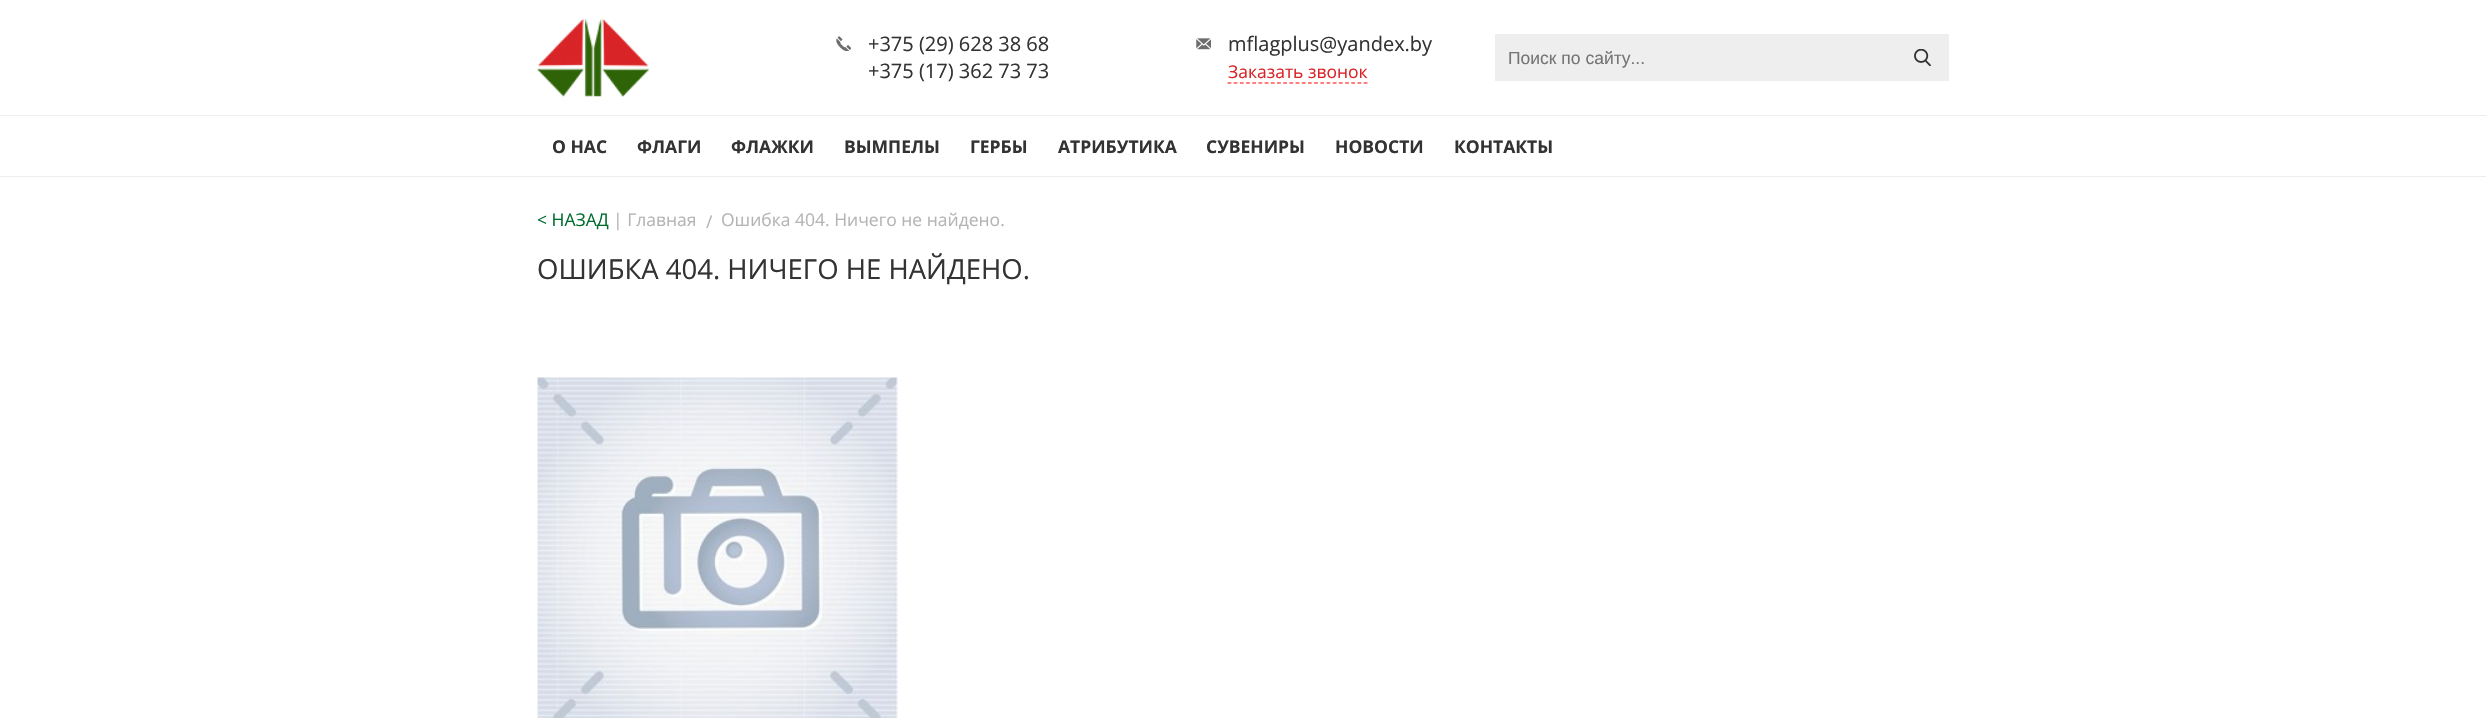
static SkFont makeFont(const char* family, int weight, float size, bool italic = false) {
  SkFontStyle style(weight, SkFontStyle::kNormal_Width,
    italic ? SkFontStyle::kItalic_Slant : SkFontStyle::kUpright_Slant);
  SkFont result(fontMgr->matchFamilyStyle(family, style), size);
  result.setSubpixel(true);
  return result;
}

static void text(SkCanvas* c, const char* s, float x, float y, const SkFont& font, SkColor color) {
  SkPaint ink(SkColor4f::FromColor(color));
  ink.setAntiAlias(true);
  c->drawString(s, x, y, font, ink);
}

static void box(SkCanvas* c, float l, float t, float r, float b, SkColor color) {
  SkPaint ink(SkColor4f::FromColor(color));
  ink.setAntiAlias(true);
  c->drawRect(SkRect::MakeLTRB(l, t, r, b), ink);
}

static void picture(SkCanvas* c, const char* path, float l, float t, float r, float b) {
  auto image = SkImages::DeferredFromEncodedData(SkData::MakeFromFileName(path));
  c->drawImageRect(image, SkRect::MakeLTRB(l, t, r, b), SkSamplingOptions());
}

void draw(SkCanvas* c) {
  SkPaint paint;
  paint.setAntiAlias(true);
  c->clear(0xffffffff);
  picture(c, "img_01.png", 537, 18, 649, 97);
  picture(c, "img_02.png", 836, 36, 851, 51);
  SkFont face1 = makeFont("Open Sans", 400, 20);
  text(c, "+375 (29) 628 38 68", 868, 51, face1, 0xff333333);
  text(c, "+375 (17) 362 73 73", 868, 78, face1, 0xff333333);
  picture(c, "img_03.png", 1196, 38, 1211, 50);
  text(c, "mflagplus@yandex.by", 1228, 51, face1, 0xff333333);
  SkFont face2 = makeFont("Open Sans", 400, 17.5f);
  text(c, "Заказать звонок", 1228, 78, face2, 0xffd92427);
  paint.setStyle(SkPaint::kStroke_Style);
  paint.setStrokeWidth(1.2f);
  paint.setColor(0xffff0000);
  paint.setPathEffect(SkDashPathEffect::Make({{3.75f, 2.44f}}, 0));
  c->drawPath(SkPathBuilder().moveTo(1227.5f, 83).lineTo(1367.5f, 83).detach(), paint);
  paint.setPathEffect(nullptr);
  box(c, 1495, 34, 1949, 81, 0xffeeeeee);
  SkFont face3 = makeFont("Liberation Sans", 400, 17.5f);
  text(c, "Поиск по сайту...", 1508, 64, face3, 0xff757575);
  picture(c, "img_04.png", 1914, 49, 1931, 66);
  box(c, 0, 115, 2486, 116, 0xffeeeeee);
  box(c, 0, 176, 2486, 177, 0xffeeeeee);
  SkFont face4 = makeFont("Open Sans", 700, 17.5f);
  text(c, "О НАС", 552, 153, face4, 0xff333333);
  text(c, "ФЛАГИ", 637, 153, face4, 0xff333333);
  text(c, "ФЛАЖКИ", 731, 153, face4, 0xff333333);
  text(c, "ВЫМПЕЛЫ", 844, 153, face4, 0xff333333);
  text(c, "ГЕРБЫ", 970, 153, face4, 0xff333333);
  text(c, "АТРИБУТИКА", 1058, 153, face4, 0xff333333);
  text(c, "СУВЕНИРЫ", 1206, 153, face4, 0xff333333);
  text(c, "НОВОСТИ", 1335, 153, face4, 0xff333333);
  text(c, "КОНТАКТЫ", 1454, 153, face4, 0xff333333);
  text(c, "< НАЗАД", 537, 226, face2, 0xff006d30);
  text(c, "| Главная", 613, 226, face2, 0xffb4b4b4);
  text(c, "/", 706, 228, face2, 0xffb4b4b4);
  text(c, "Ошибка 404. Ничего не найдено.", 721, 226, face2, 0xffb4b4b4);
  SkFont face5 = makeFont("Open Sans", 400, 27.5f);
  text(c, "ОШИБКА 404. НИЧЕГО НЕ НАЙДЕНО.", 537, 279, face5, 0xff333333);
  picture(c, "img_05.png", 537, 377, 898, 718);
}
